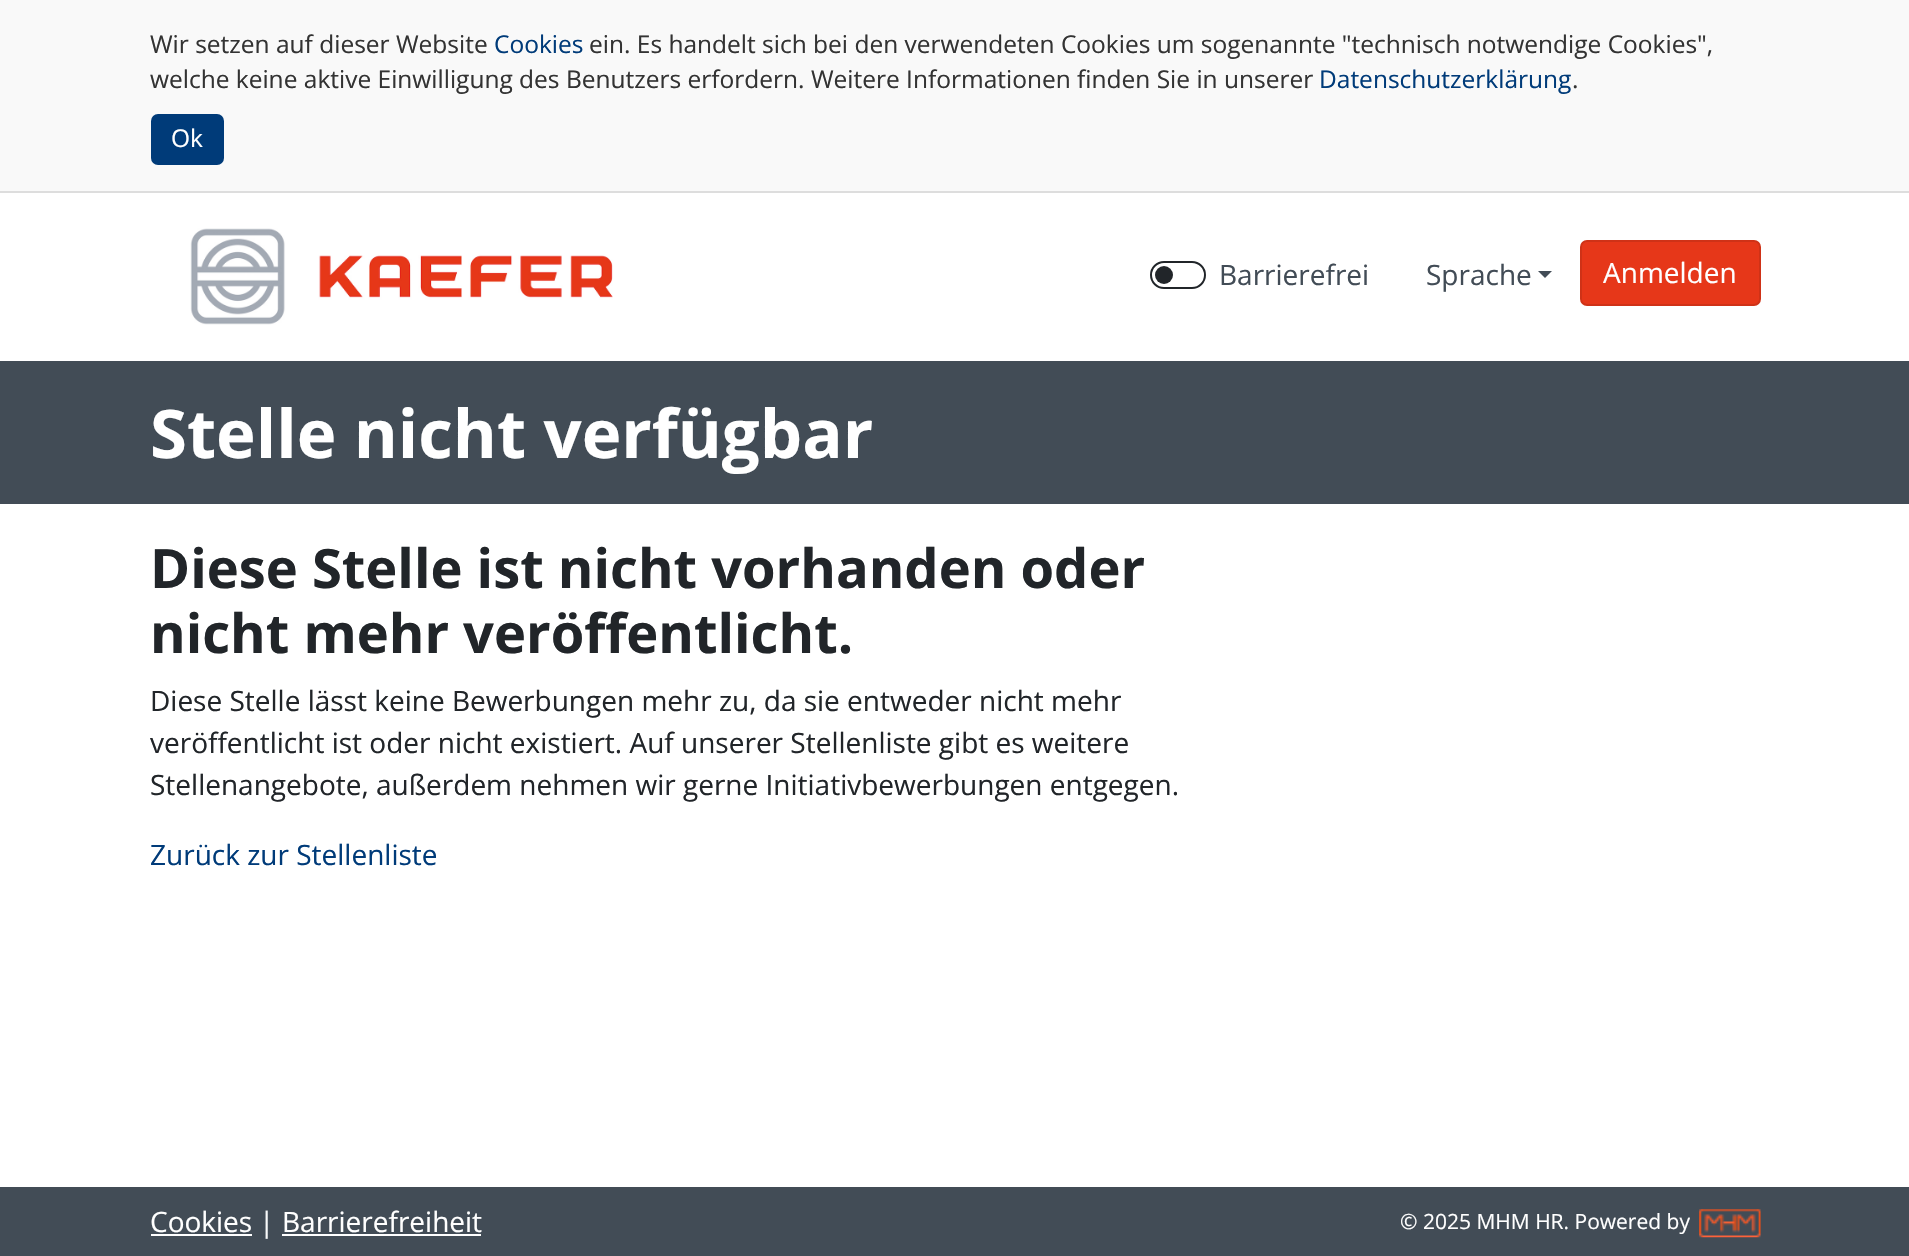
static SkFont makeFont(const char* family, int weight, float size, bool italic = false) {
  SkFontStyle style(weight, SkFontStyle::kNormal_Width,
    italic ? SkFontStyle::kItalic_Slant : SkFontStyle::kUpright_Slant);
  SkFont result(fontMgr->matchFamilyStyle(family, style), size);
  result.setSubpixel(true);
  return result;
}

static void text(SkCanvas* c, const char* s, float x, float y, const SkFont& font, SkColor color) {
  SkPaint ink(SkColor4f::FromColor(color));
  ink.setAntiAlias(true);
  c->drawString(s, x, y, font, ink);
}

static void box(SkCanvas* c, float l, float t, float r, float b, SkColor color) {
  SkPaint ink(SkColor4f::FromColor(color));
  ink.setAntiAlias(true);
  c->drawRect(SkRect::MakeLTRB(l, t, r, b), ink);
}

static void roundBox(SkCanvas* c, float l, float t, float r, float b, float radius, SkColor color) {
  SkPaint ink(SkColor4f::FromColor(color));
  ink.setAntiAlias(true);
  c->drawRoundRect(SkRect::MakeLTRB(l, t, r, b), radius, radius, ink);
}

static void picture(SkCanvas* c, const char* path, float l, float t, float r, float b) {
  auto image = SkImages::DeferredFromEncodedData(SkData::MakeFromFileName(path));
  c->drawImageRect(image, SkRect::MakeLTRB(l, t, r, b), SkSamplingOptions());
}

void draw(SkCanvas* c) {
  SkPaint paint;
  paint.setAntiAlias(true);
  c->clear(0xffffffff);
  box(c, 0, 0, 1909, 191, 0xfff9f9f9);
  box(c, 0, 191, 1909, 193, 0xffdddddd);
  SkFont face1 = makeFont("Open Sans", 400, 24.5f);
  text(c, "Wir setzen auf dieser Website", 150, 53, face1, 0xff333333);
  text(c, "Cookies", 494, 53, face1, 0xff003b79);
  text(c, "ein. Es handelt sich bei den verwendeten Cookies um sogenannte \"technisch notwendige Cookies\",", 589, 53, face1, 0xff333333);
  text(c, "welche keine aktive Einwilligung des Benutzers erfordern. Weitere Informationen finden Sie in unserer", 150, 88, face1, 0xff333333);
  text(c, "Datenschutzerklärung", 1319, 88, face1, 0xff003b79);
  text(c, ".", 1572, 88, face1, 0xff333333);
  roundBox(c, 151, 114, 224, 165, 7, 0xff003b79);
  text(c, "Ok", 171, 147, face1, 0xffffffff);
  picture(c, "img_01.png", 190, 228, 613, 325);
  paint.setColor(0xff212529);
  c->drawCircle(1164, 275, 9, paint);
  paint.setStyle(SkPaint::kStroke_Style);
  paint.setStrokeWidth(2);
  c->drawRoundRect(SkRect::MakeLTRB(1151, 262, 1205, 288), 13, 13, paint);
  SkFont face2 = makeFont("Open Sans", 400, 28);
  text(c, "Barrierefrei", 1219, 285, face2, 0xff424c56);
  text(c, "Sprache", 1426, 285, face2, 0xff424c56);
  paint.setStyle(SkPaint::kFill_Style);
  paint.setColor(0xff424c56);
  c->drawPath(SkPathBuilder().moveTo(1538, 271).lineTo(1552, 271).lineTo(1545, 278).close().detach(), paint);
  paint.setColor(0xffe63719);
  c->drawRoundRect(SkRect::MakeLTRB(1581, 241, 1760, 305), 6, 6, paint);
  paint.setStyle(SkPaint::kStroke_Style);
  paint.setColor(0xffcf3217);
  c->drawRoundRect(SkRect::MakeLTRB(1581, 241, 1760, 305), 6, 6, paint);
  text(c, "Anmelden", 1603, 283, face2, 0xffffffff);
  box(c, 0, 361, 1909, 504, 0xff424c56);
  SkFont face3 = makeFont("Open Sans", 700, 67.1f);
  text(c, "Stelle nicht verfügbar", 150, 458, face3, 0xffffffff);
  SkFont face4 = makeFont("Open Sans", 700, 54.25f);
  text(c, "Diese Stelle ist nicht vorhanden oder", 150, 588, face4, 0xff212529);
  text(c, "nicht mehr veröffentlicht.", 150, 653, face4, 0xff212529);
  text(c, "Diese Stelle lässt keine Bewerbungen mehr zu, da sie entweder nicht mehr", 150, 711, face2, 0xff212529);
  text(c, "veröffentlicht ist oder nicht existiert. Auf unserer Stellenliste gibt es weitere", 150, 753, face2, 0xff212529);
  text(c, "Stellenangebote, außerdem nehmen wir gerne Initiativbewerbungen entgegen.", 150, 795, face2, 0xff212529);
  text(c, "Zurück zur Stellenliste", 150, 865, face2, 0xff003b79);
  box(c, 0, 1187, 1909, 1256, 0xff424c56);
  text(c, "Cookies", 150, 1232, face2, 0xffffffff);
  box(c, 151, 1234, 252, 1236, 0xffffffff);
  text(c, "|", 259, 1232, face2, 0xfff8f9fa);
  text(c, "Barrierefreiheit", 282, 1232, face2, 0xffffffff);
  box(c, 282, 1234, 481, 1236, 0xffffffff);
  SkFont face5 = makeFont("Open Sans", 400, 21);
  text(c, "© 2025 MHM HR. Powered by", 1400, 1229, face5, 0xffffffff);
  picture(c, "img_02.png", 1699, 1209, 1761, 1238);
}
